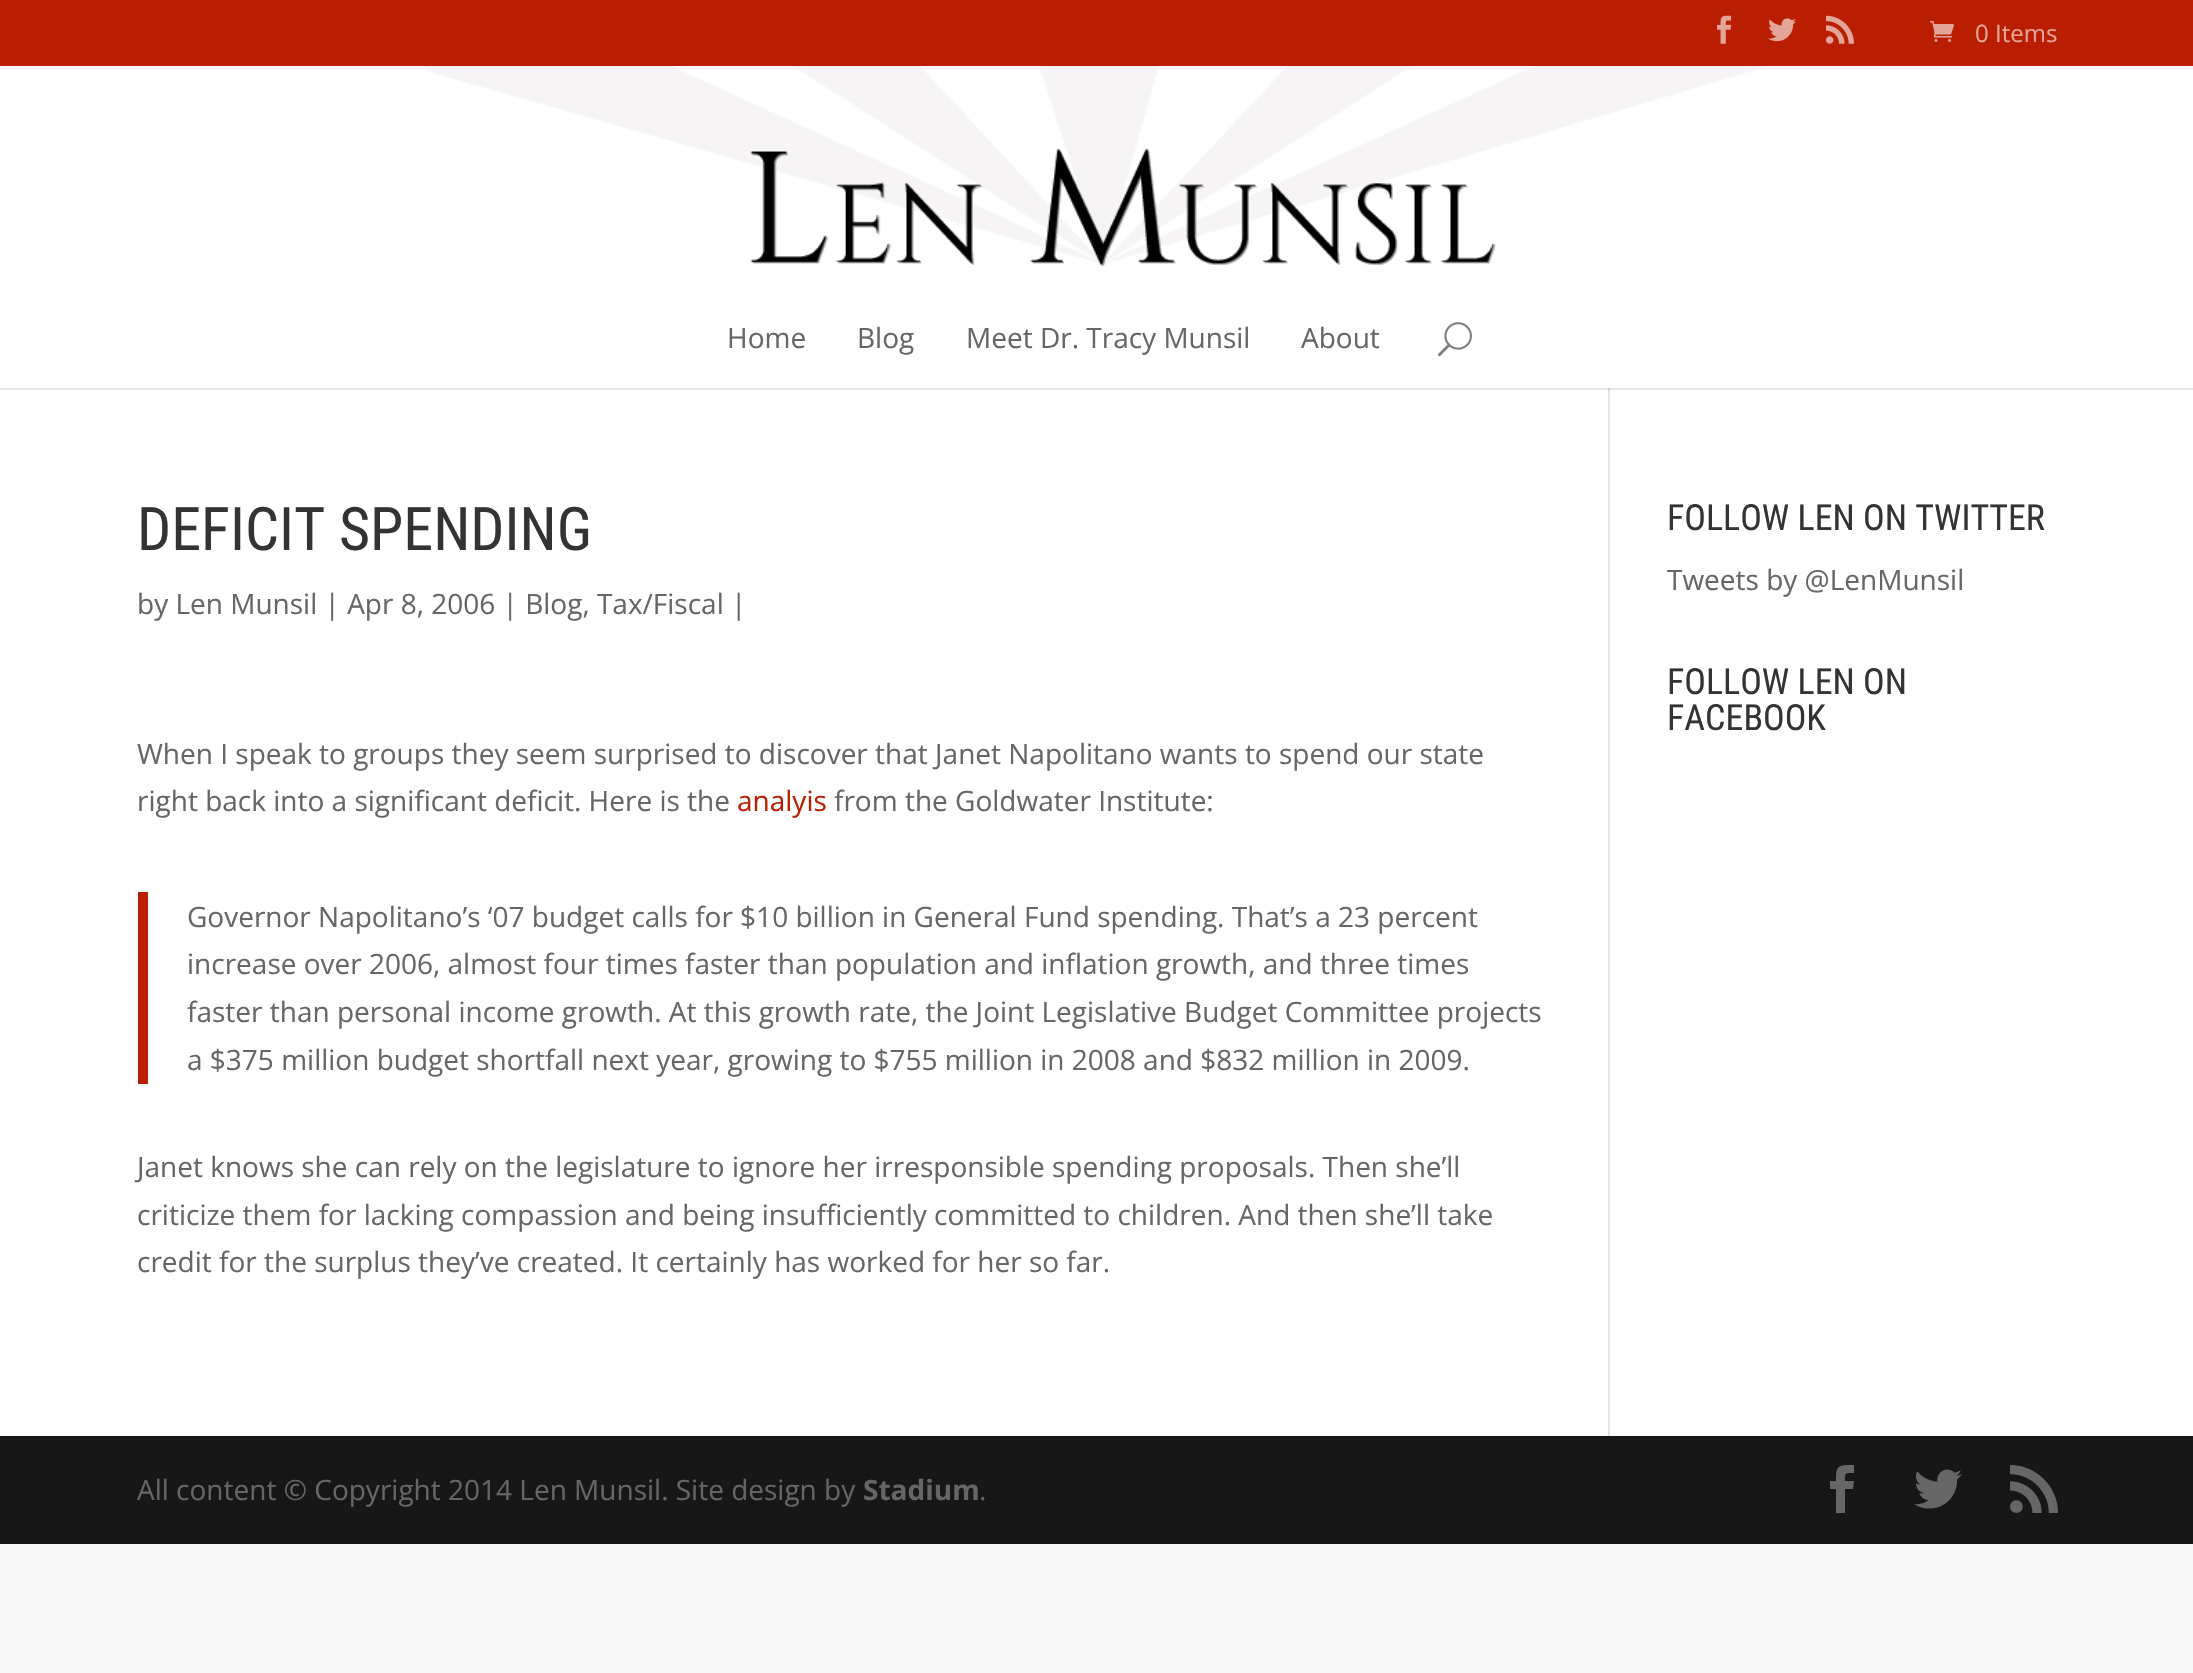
static SkFont makeFont(const char* family, int weight, float size, bool italic = false) {
  SkFontStyle style(weight, SkFontStyle::kNormal_Width,
    italic ? SkFontStyle::kItalic_Slant : SkFontStyle::kUpright_Slant);
  SkFont result(fontMgr->matchFamilyStyle(family, style), size);
  result.setSubpixel(true);
  return result;
}

static void text(SkCanvas* c, const char* s, float x, float y, const SkFont& font, SkColor color) {
  SkPaint ink(SkColor4f::FromColor(color));
  ink.setAntiAlias(true);
  c->drawString(s, x, y, font, ink);
}

static void box(SkCanvas* c, float l, float t, float r, float b, SkColor color) {
  SkPaint ink(SkColor4f::FromColor(color));
  ink.setAntiAlias(true);
  c->drawRect(SkRect::MakeLTRB(l, t, r, b), ink);
}

static void picture(SkCanvas* c, const char* path, float l, float t, float r, float b) {
  auto image = SkImages::DeferredFromEncodedData(SkData::MakeFromFileName(path));
  c->drawImageRect(image, SkRect::MakeLTRB(l, t, r, b), SkSamplingOptions());
}

void draw(SkCanvas* c) {
  SkPaint paint;
  paint.setAntiAlias(true);
  c->clear(0xfff9f9f9);
  box(c, 0, 0, 2193, 66, 0xffb91e00);
  picture(c, "img_01.png", 1717, 15, 1732, 44);
  picture(c, "img_02.png", 1768, 18, 1796, 42);
  picture(c, "img_03.png", 1826, 15, 1854, 44);
  picture(c, "img_04.png", 1930, 21, 1954, 42);
  SkFont face1 = makeFont("Open Sans", 400, 24);
  text(c, "0 Items", 1975, 42, face1, 0xffe3a599);
  box(c, 0, 390, 2193, 1436, 0xffffffff);
  box(c, 0, 388, 2193, 390, 0xffe6e6e6);
  box(c, 1608, 384, 1610, 1436, 0xffe2e2e2);
  box(c, 0, 66, 2193, 388, 0xffffffff);
  picture(c, "img_05.png", 426, 66, 1766, 266);
  SkFont face2 = makeFont("Open Sans", 400, 28);
  text(c, "Home", 727, 348, face2, 0xff666666);
  text(c, "Blog", 857, 348, face2, 0xff666666);
  text(c, "Meet Dr. Tracy Munsil", 966, 348, face2, 0xff666666);
  text(c, "About", 1301, 348, face2, 0xff666666);
  picture(c, "img_06.png", 1437, 322, 1472, 357);
  box(c, 1608, 388, 1610, 390, 0xffcbcbcb);
  SkFont face3 = makeFont("Roboto Condensed", 400, 60);
  text(c, "DEFICIT SPENDING", 137, 550, face3, 0xff333333);
  text(c, "by Len Munsil | Apr 8, 2006 | Blog, Tax/Fiscal |", 137, 614, face2, 0xff666666);
  text(c, "When I speak to groups they seem surprised to discover that Janet Napolitano wants to spend our state", 137, 764, face2, 0xff666666);
  text(c, "right back into a significant deficit. Here is the", 137, 811, face2, 0xff666666);
  text(c, "analyis", 737, 811, face2, 0xffb91e00);
  text(c, "from the Goldwater Institute:", 834, 811, face2, 0xff666666);
  box(c, 138, 892, 148, 1084, 0xffb91e00);
  text(c, "Governor Napolitano’s ‘07 budget calls for $10 billion in General Fund spending. That’s a 23 percent", 187, 927, face2, 0xff666666);
  text(c, "increase over 2006, almost four times faster than population and inflation growth, and three times", 187, 974, face2, 0xff666666);
  text(c, "faster than personal income growth. At this growth rate, the Joint Legislative Budget Committee projects", 187, 1022, face2, 0xff666666);
  text(c, "a $375 million budget shortfall next year, growing to $755 million in 2008 and $832 million in 2009.", 187, 1070, face2, 0xff666666);
  text(c, "Janet knows she can rely on the legislature to ignore her irresponsible spending proposals. Then she’ll", 137, 1177, face2, 0xff666666);
  text(c, "criticize them for lacking compassion and being insufficiently committed to children. And then she’ll take", 137, 1225, face2, 0xff666666);
  text(c, "credit for the surplus they’ve created. It certainly has worked for her so far.", 137, 1272, face2, 0xff666666);
  SkFont face4 = makeFont("Roboto Condensed", 400, 36);
  text(c, "FOLLOW LEN ON TWITTER", 1667, 530, face4, 0xff333333);
  text(c, "Tweets by @LenMunsil", 1667, 590, face2, 0xff666666);
  text(c, "FOLLOW LEN ON", 1667, 694, face4, 0xff333333);
  text(c, "FACEBOOK", 1667, 730, face4, 0xff333333);
  box(c, 0, 1436, 2193, 1544, 0xff171717);
  text(c, "All content © Copyright 2014 Len Munsil. Site design by", 137, 1500, face2, 0xff666666);
  SkFont face5 = makeFont("Open Sans", 700, 28);
  text(c, "Stadium", 863, 1500, face5, 0xff666666);
  text(c, ".", 979, 1500, face2, 0xff666666);
  paint.setColor(0xff666666);
  c->drawPath(SkPathBuilder().moveTo(1836, 1513).lineTo(1845, 1513).lineTo(1845, 1489).lineTo(1853, 1489).lineTo(1854, 1481).lineTo(1845, 1481).cubicTo(1845, 1472, 1845, 1473, 1854, 1473).lineTo(1854, 1465).cubicTo(1838, 1465, 1836, 1465, 1836, 1481).lineTo(1830, 1481).lineTo(1830, 1489).lineTo(1836, 1489).close().detach(), paint);
  picture(c, "img_07.png", 1914, 1469, 1962, 1509);
  picture(c, "img_08.png", 2010, 1465, 2058, 1513);
}
